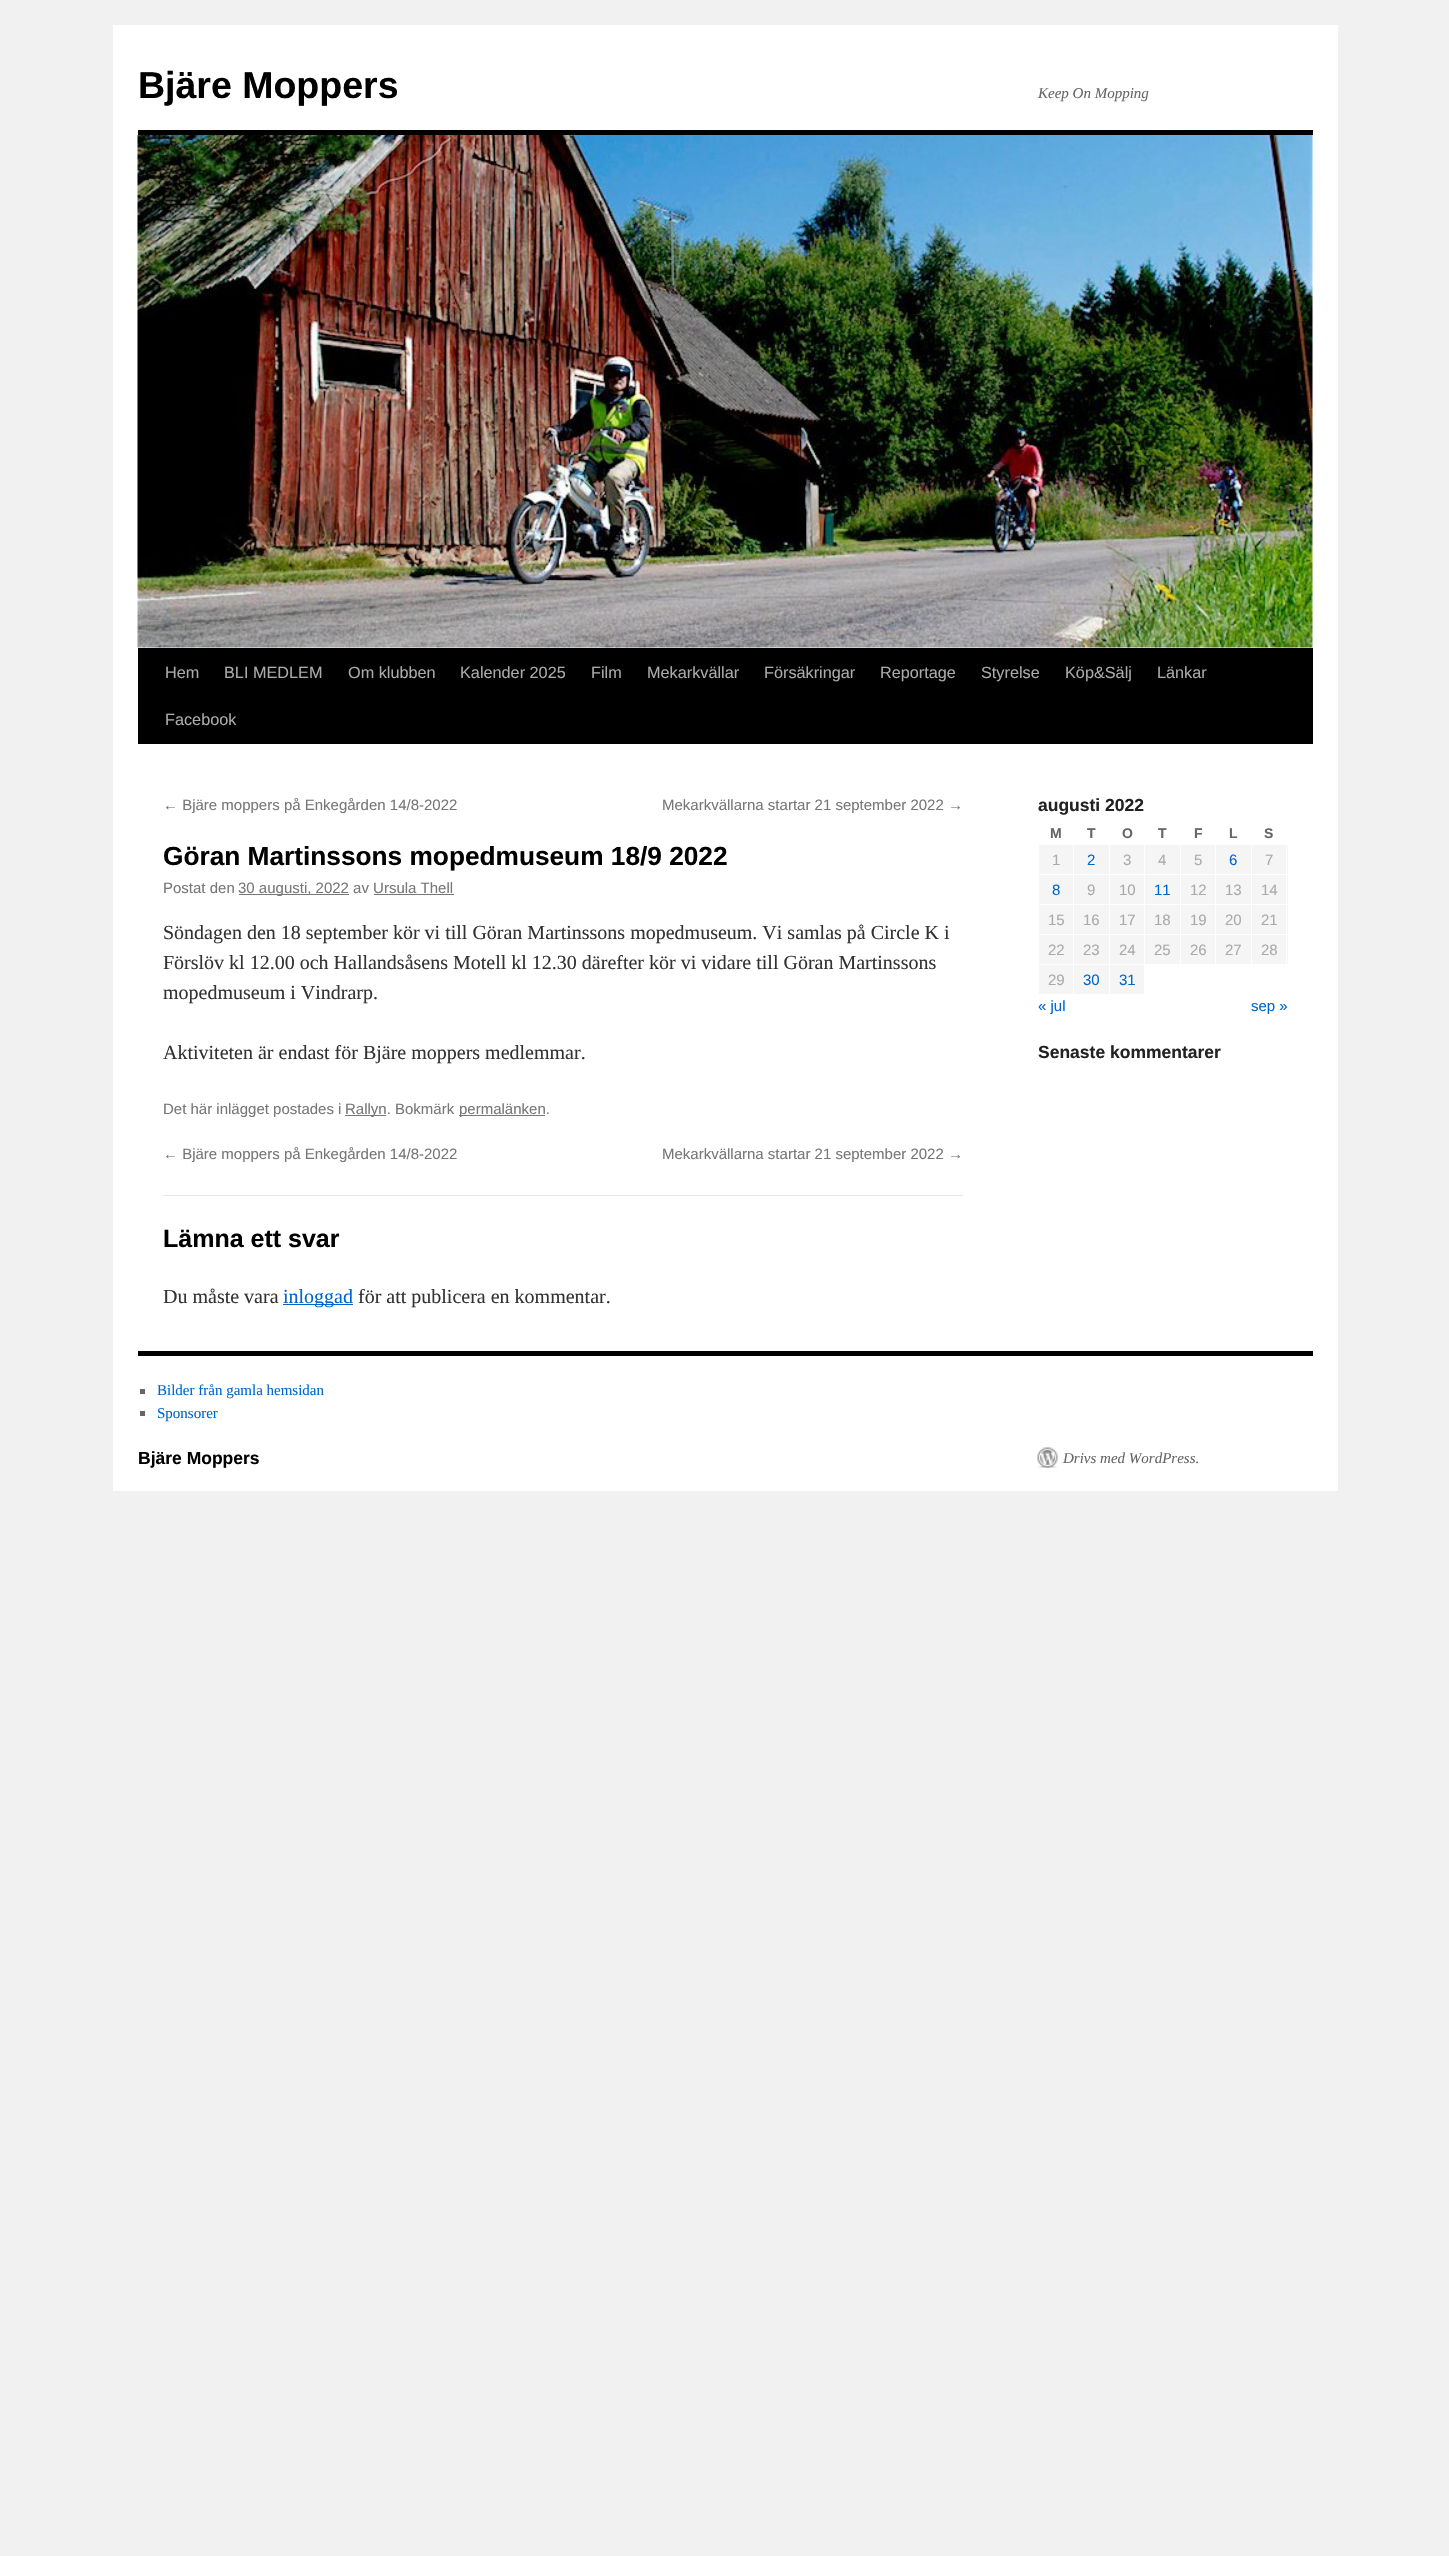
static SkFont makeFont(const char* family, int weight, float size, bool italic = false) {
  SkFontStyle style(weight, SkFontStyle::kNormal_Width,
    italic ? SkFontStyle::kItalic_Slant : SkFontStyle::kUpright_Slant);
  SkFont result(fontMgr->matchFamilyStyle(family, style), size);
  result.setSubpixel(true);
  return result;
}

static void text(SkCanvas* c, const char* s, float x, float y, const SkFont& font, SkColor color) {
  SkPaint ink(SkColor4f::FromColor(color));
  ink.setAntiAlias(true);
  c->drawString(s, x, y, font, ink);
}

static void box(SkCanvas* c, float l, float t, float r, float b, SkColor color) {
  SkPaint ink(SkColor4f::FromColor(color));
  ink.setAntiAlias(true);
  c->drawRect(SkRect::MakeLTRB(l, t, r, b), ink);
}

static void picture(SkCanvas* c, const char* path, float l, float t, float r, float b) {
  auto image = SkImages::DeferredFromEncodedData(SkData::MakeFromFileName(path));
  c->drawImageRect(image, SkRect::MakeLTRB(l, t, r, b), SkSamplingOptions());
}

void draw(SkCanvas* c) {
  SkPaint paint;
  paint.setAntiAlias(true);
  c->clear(0xfff1f1f1);
  box(c, 113, 25, 1338, 1491, 0xffffffff);
  SkFont face1 = makeFont("Liberation Sans", 700, 37.5f);
  text(c, "Bjäre Moppers", 138, 98, face1, 0xff000000);
  SkFont face2 = makeFont("Liberation Serif", 400, 15, true);
  text(c, "Keep On Mopping", 1038, 98, face2, 0xff666666);
  box(c, 138, 130, 1313, 135, 0xff000000);
  box(c, 138, 648, 1313, 744, 0xff000000);
  picture(c, "img_01.png", 137, 135, 1313, 648);
  SkFont face3 = makeFont("Liberation Sans", 400, 16.25f);
  text(c, "Hem", 165, 678, face3, 0xffaaaaaa);
  text(c, "BLI MEDLEM", 224, 678, face3, 0xffaaaaaa);
  text(c, "Om klubben", 348, 678, face3, 0xffaaaaaa);
  text(c, "Kalender 2025", 460, 678, face3, 0xffaaaaaa);
  text(c, "Film", 591, 678, face3, 0xffaaaaaa);
  text(c, "Mekarkvällar", 647, 678, face3, 0xffaaaaaa);
  text(c, "Försäkringar", 764, 678, face3, 0xffaaaaaa);
  text(c, "Reportage", 880, 678, face3, 0xffaaaaaa);
  text(c, "Styrelse", 981, 678, face3, 0xffaaaaaa);
  text(c, "Köp&Sälj", 1065, 678, face3, 0xffaaaaaa);
  text(c, "Länkar", 1157, 678, face3, 0xffaaaaaa);
  text(c, "Facebook", 165, 725, face3, 0xffaaaaaa);
  SkFont face4 = makeFont("Liberation Sans", 400, 15);
  text(c, "← Bjäre moppers på Enkegården 14/8-2022", 163, 810, face4, 0xff777777);
  text(c, "Mekarkvällarna startar 21 september 2022 →", 662, 810, face4, 0xff777777);
  SkFont face5 = makeFont("Liberation Sans", 700, 26.25f);
  text(c, "Göran Martinssons mopedmuseum 18/9 2022", 163, 865, face5, 0xff000000);
  text(c, "Postat den", 163, 893, face4, 0xff777777);
  box(c, 239, 894, 349, 895, 0xff777777);
  text(c, "30 augusti, 2022 av Ursula Thell", 238, 893, face4, 0xff777777);
  box(c, 374, 894, 454, 895, 0xff777777);
  SkFont face6 = makeFont("Liberation Serif", 400, 20);
  text(c, "Söndagen den 18 september kör vi till Göran Martinssons mopedmuseum. Vi samlas på Circle K i", 163, 939, face6, 0xff333333);
  text(c, "Förslöv kl 12.00 och Hallandsåsens Motell kl 12.30 därefter kör vi vidare till Göran Martinssons", 163, 969, face6, 0xff333333);
  text(c, "mopedmuseum i Vindrarp.", 163, 999, face6, 0xff333333);
  text(c, "Aktiviteten är endast för Bjäre moppers medlemmar.", 163, 1059, face6, 0xff333333);
  text(c, "Det här inlägget postades i", 163, 1114, face4, 0xff777777);
  box(c, 345, 1115, 386, 1116, 0xff777777);
  text(c, "Rallyn. Bokmärk", 345, 1114, face4, 0xff777777);
  box(c, 459, 1115, 545, 1116, 0xff777777);
  text(c, "permalänken.", 459, 1114, face4, 0xff777777);
  text(c, "← Bjäre moppers på Enkegården 14/8-2022", 163, 1159, face4, 0xff777777);
  text(c, "Mekarkvällarna startar 21 september 2022 →", 662, 1159, face4, 0xff777777);
  box(c, 163, 1195, 963, 1196, 0xffe7e7e7);
  SkFont face7 = makeFont("Liberation Sans", 700, 25);
  text(c, "Lämna ett svar", 163, 1247, face7, 0xff000000);
  text(c, "Du måste vara", 163, 1303, face6, 0xff333333);
  box(c, 283, 1304, 353, 1305, 0xff0066cc);
  text(c, "inloggad", 283, 1303, face6, 0xff0066cc);
  text(c, "för att publicera en kommentar.", 358, 1303, face6, 0xff333333);
  SkFont face8 = makeFont("Liberation Sans", 700, 17.5f);
  text(c, "augusti 2022", 1038, 811, face8, 0xff222222);
  SkFont face9 = makeFont("Liberation Sans", 700, 14);
  text(c, "M", 1050, 838, face9, 0xff666666);
  text(c, "T", 1087, 838, face9, 0xff666666);
  text(c, "O", 1122, 838, face9, 0xff666666);
  text(c, "T", 1158, 838, face9, 0xff666666);
  text(c, "F", 1194, 838, face9, 0xff666666);
  text(c, "L", 1229, 838, face9, 0xff666666);
  text(c, "S", 1264, 838, face9, 0xff666666);
  box(c, 1039, 845, 1073, 874, 0xfff5f5f5);
  text(c, "1", 1052, 865, face4, 0xffaaaaaa);
  box(c, 1074, 845, 1109, 874, 0xfff5f5f5);
  text(c, "2", 1087, 865, face4, 0xff0066cc);
  box(c, 1110, 845, 1144, 874, 0xfff5f5f5);
  text(c, "3", 1123, 865, face4, 0xffaaaaaa);
  box(c, 1145, 845, 1180, 874, 0xfff5f5f5);
  text(c, "4", 1158, 865, face4, 0xffaaaaaa);
  box(c, 1181, 845, 1215, 874, 0xfff5f5f5);
  text(c, "5", 1194, 865, face4, 0xffaaaaaa);
  box(c, 1216, 845, 1251, 874, 0xfff5f5f5);
  text(c, "6", 1229, 865, face4, 0xff0066cc);
  box(c, 1252, 845, 1288, 874, 0xfff5f5f5);
  text(c, "7", 1265, 865, face4, 0xffaaaaaa);
  box(c, 1039, 875, 1073, 904, 0xfff5f5f5);
  text(c, "8", 1052, 895, face4, 0xff0066cc);
  box(c, 1074, 875, 1109, 904, 0xfff5f5f5);
  text(c, "9", 1087, 895, face4, 0xffaaaaaa);
  box(c, 1110, 875, 1144, 904, 0xfff5f5f5);
  text(c, "10", 1119, 895, face4, 0xffaaaaaa);
  box(c, 1145, 875, 1180, 904, 0xfff5f5f5);
  text(c, "11", 1154, 895, face4, 0xff0066cc);
  box(c, 1181, 875, 1215, 904, 0xfff5f5f5);
  text(c, "12", 1190, 895, face4, 0xffaaaaaa);
  box(c, 1216, 875, 1251, 904, 0xfff5f5f5);
  text(c, "13", 1225, 895, face4, 0xffaaaaaa);
  box(c, 1252, 875, 1288, 904, 0xfff5f5f5);
  text(c, "14", 1261, 895, face4, 0xffaaaaaa);
  box(c, 1039, 905, 1073, 934, 0xfff5f5f5);
  text(c, "15", 1048, 925, face4, 0xffaaaaaa);
  box(c, 1074, 905, 1109, 934, 0xfff5f5f5);
  text(c, "16", 1083, 925, face4, 0xffaaaaaa);
  box(c, 1110, 905, 1144, 934, 0xfff5f5f5);
  text(c, "17", 1119, 925, face4, 0xffaaaaaa);
  box(c, 1145, 905, 1180, 934, 0xfff5f5f5);
  text(c, "18", 1154, 925, face4, 0xffaaaaaa);
  box(c, 1181, 905, 1215, 934, 0xfff5f5f5);
  text(c, "19", 1190, 925, face4, 0xffaaaaaa);
  box(c, 1216, 905, 1251, 934, 0xfff5f5f5);
  text(c, "20", 1225, 925, face4, 0xffaaaaaa);
  box(c, 1252, 905, 1288, 934, 0xfff5f5f5);
  text(c, "21", 1261, 925, face4, 0xffaaaaaa);
  box(c, 1039, 935, 1073, 964, 0xfff5f5f5);
  text(c, "22", 1048, 955, face4, 0xffaaaaaa);
  box(c, 1074, 935, 1109, 964, 0xfff5f5f5);
  text(c, "23", 1083, 955, face4, 0xffaaaaaa);
  box(c, 1110, 935, 1144, 964, 0xfff5f5f5);
  text(c, "24", 1119, 955, face4, 0xffaaaaaa);
  box(c, 1145, 935, 1180, 964, 0xfff5f5f5);
  text(c, "25", 1154, 955, face4, 0xffaaaaaa);
  box(c, 1181, 935, 1215, 964, 0xfff5f5f5);
  text(c, "26", 1190, 955, face4, 0xffaaaaaa);
  box(c, 1216, 935, 1251, 964, 0xfff5f5f5);
  text(c, "27", 1225, 955, face4, 0xffaaaaaa);
  box(c, 1252, 935, 1288, 964, 0xfff5f5f5);
  box(c, 1286, 844, 1287, 965, 0xffffffff);
  text(c, "28", 1261, 955, face4, 0xffaaaaaa);
  box(c, 1039, 965, 1073, 994, 0xfff5f5f5);
  text(c, "29", 1048, 985, face4, 0xffaaaaaa);
  box(c, 1074, 965, 1109, 994, 0xfff5f5f5);
  text(c, "30", 1083, 985, face4, 0xff0066cc);
  box(c, 1110, 965, 1144, 994, 0xfff5f5f5);
  text(c, "31", 1119, 985, face4, 0xff0066cc);
  text(c, "« jul", 1038, 1011, face4, 0xff0066cc);
  text(c, "sep »", 1251, 1011, face4, 0xff0066cc);
  text(c, "Senaste kommentarer", 1038, 1058, face8, 0xff222222);
  box(c, 138, 1351, 1313, 1356, 0xff000000);
  box(c, 140, 1389, 145, 1394, 0xff666666);
  SkFont face10 = makeFont("Liberation Serif", 400, 15);
  text(c, "Bilder från gamla hemsidan", 157, 1395, face10, 0xff0066cc);
  box(c, 140, 1411, 145, 1416, 0xff666666);
  text(c, "Sponsorer", 157, 1418, face10, 0xff0066cc);
  text(c, "Bjäre Moppers", 138, 1464, face8, 0xff000000);
  picture(c, "img_02.png", 1037, 1447, 1058, 1468);
  text(c, "Drivs med WordPress.", 1063, 1463, face2, 0xff666666);
}
